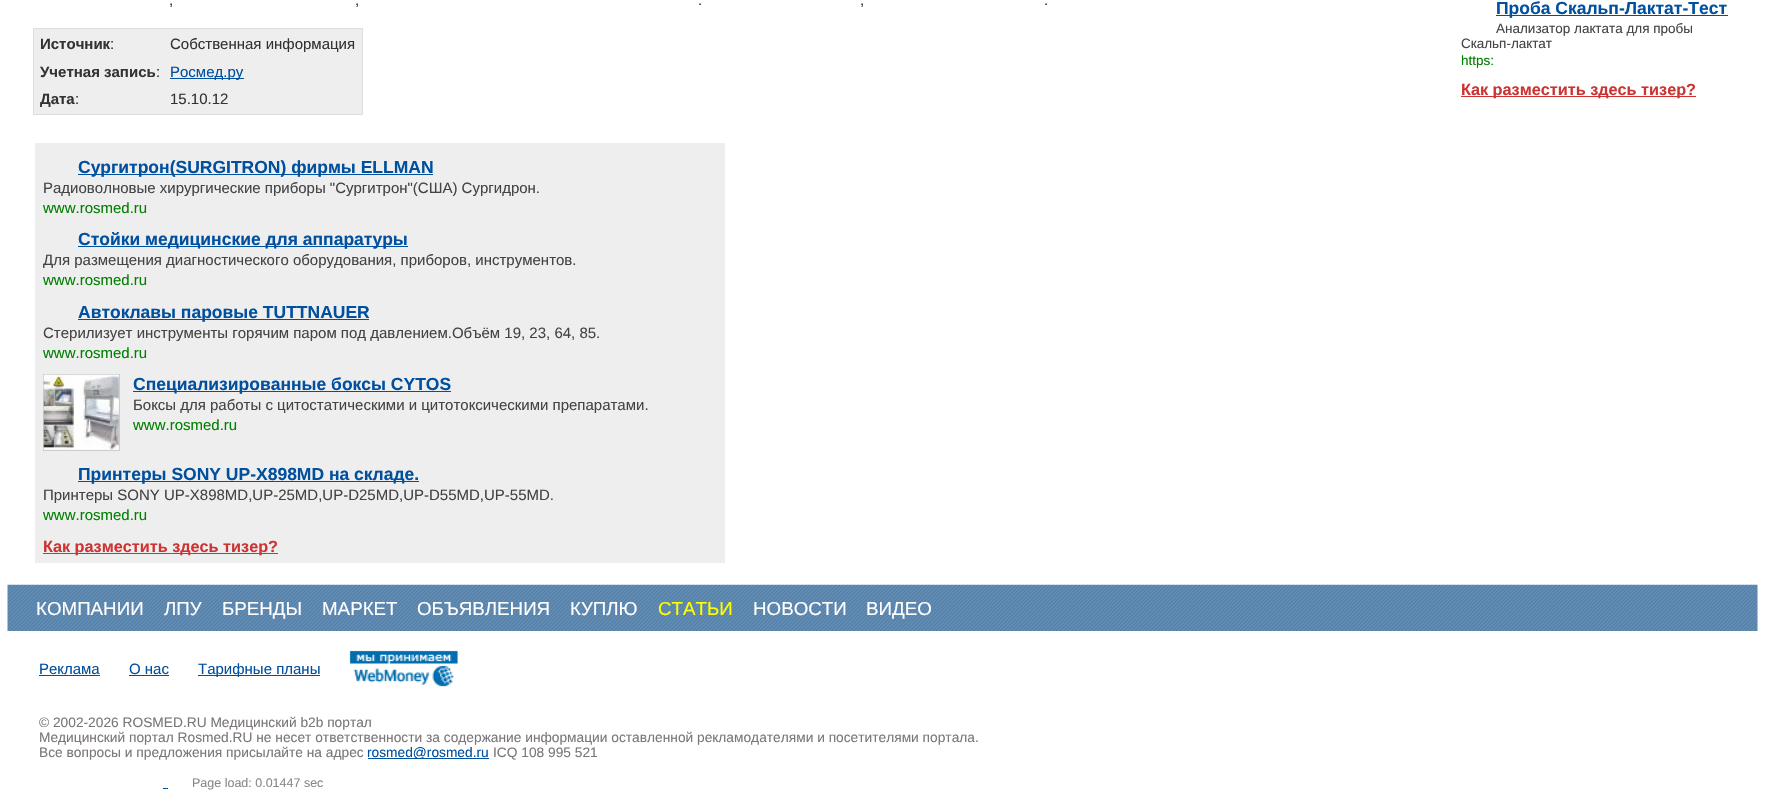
static SkFont makeFont(const char* family, int weight, float size, bool italic = false) {
  SkFontStyle style(weight, SkFontStyle::kNormal_Width,
    italic ? SkFontStyle::kItalic_Slant : SkFontStyle::kUpright_Slant);
  SkFont result(fontMgr->matchFamilyStyle(family, style), size);
  result.setSubpixel(true);
  return result;
}

static void text(SkCanvas* c, const char* s, float x, float y, const SkFont& font, SkColor color) {
  SkPaint ink(SkColor4f::FromColor(color));
  ink.setAntiAlias(true);
  c->drawString(s, x, y, font, ink);
}

static void box(SkCanvas* c, float l, float t, float r, float b, SkColor color) {
  SkPaint ink(SkColor4f::FromColor(color));
  ink.setAntiAlias(true);
  c->drawRect(SkRect::MakeLTRB(l, t, r, b), ink);
}

static void picture(SkCanvas* c, const char* path, float l, float t, float r, float b) {
  auto image = SkImages::DeferredFromEncodedData(SkData::MakeFromFileName(path));
  c->drawImageRect(image, SkRect::MakeLTRB(l, t, r, b), SkSamplingOptions());
}

void draw(SkCanvas* c) {
  SkPaint paint;
  paint.setAntiAlias(true);
  c->clear(0xffffffff);
  SkFont face1 = makeFont("Liberation Sans", 400, 15);
  text(c, ",", 169, 5, face1, 0xff333333);
  text(c, ",", 355, 5, face1, 0xff333333);
  text(c, ".", 698, 5, face1, 0xff333333);
  text(c, ",", 860, 5, face1, 0xff333333);
  text(c, ".", 1044, 5, face1, 0xff333333);
  paint.setColor(0xffeeeeee);
  c->drawRect(SkRect::MakeLTRB(33.5f, 28.5f, 362.5f, 114.5f), paint);
  paint.setStyle(SkPaint::kStroke_Style);
  paint.setStrokeWidth(1);
  paint.setColor(0xffdddddd);
  c->drawRect(SkRect::MakeLTRB(33.5f, 28.5f, 362.5f, 114.5f), paint);
  SkFont face2 = makeFont("Liberation Sans", 700, 15);
  text(c, "Источник", 40, 49, face2, 0xff333333);
  text(c, ":", 110, 49, face1, 0xff333333);
  text(c, "Собственная информация", 170, 49, face1, 0xff333333);
  text(c, "Учетная запись", 40, 77, face2, 0xff333333);
  text(c, ":", 156, 77, face1, 0xff333333);
  box(c, 170, 78, 244, 79, 0xff00509f);
  text(c, "Росмед.ру", 170, 77, face1, 0xff00509f);
  text(c, "Дата", 40, 104, face2, 0xff333333);
  text(c, ":", 75, 104, face1, 0xff333333);
  text(c, "15.10.12", 170, 104, face1, 0xff333333);
  box(c, 35, 143, 725, 563, 0xffeeeeee);
  box(c, 78, 174, 433, 175, 0xff00509f);
  SkFont face3 = makeFont("Liberation Sans", 700, 17.5f);
  text(c, "Сургитрон(SURGITRON) фирмы ELLMAN", 78, 173, face3, 0xff00509f);
  text(c, "Радиоволновые хирургические приборы \"Сургитрон\"(США) Сургидрон.", 43, 193, face1, 0xff444444);
  text(c, "www.rosmed.ru", 43, 213, face1, 0xff008000);
  box(c, 78, 246, 408, 247, 0xff00509f);
  text(c, "Стойки медицинские для аппаратуры", 78, 245, face3, 0xff00509f);
  text(c, "Для размещения диагностического оборудования, приборов, инструментов.", 43, 265, face1, 0xff444444);
  text(c, "www.rosmed.ru", 43, 285, face1, 0xff008000);
  box(c, 78, 319, 369, 320, 0xff00509f);
  text(c, "Автоклавы паровые TUTTNAUER", 78, 318, face3, 0xff00509f);
  text(c, "Стерилизует инструменты горячим паром под давлением.Объём 19, 23, 64, 85.", 43, 338, face1, 0xff444444);
  text(c, "www.rosmed.ru", 43, 358, face1, 0xff008000);
  paint.setColor(0xffcccccc);
  c->drawRect(SkRect::MakeLTRB(43.5f, 374.5f, 119.5f, 450.5f), paint);
  picture(c, "img_01.png", 43, 374, 119, 450);
  box(c, 133, 391, 451, 392, 0xff00509f);
  text(c, "Специализированные боксы CYTOS", 133, 390, face3, 0xff00509f);
  text(c, "Боксы для работы с цитостатическими и цитотоксическими препаратами.", 133, 410, face1, 0xff444444);
  text(c, "www.rosmed.ru", 133, 430, face1, 0xff008000);
  box(c, 78, 481, 419, 482, 0xff00509f);
  text(c, "Принтеры SONY UP-X898MD на складе.", 78, 480, face3, 0xff00509f);
  text(c, "Принтеры SONY UP-X898MD,UP-25MD,UP-D25MD,UP-D55MD,UP-55MD.", 43, 500, face1, 0xff444444);
  text(c, "www.rosmed.ru", 43, 520, face1, 0xff008000);
  box(c, 43, 553, 278, 554, 0xffcc3333);
  SkFont face4 = makeFont("Liberation Sans", 700, 16.25f);
  text(c, "Как разместить здесь тизер?", 43, 552, face4, 0xffcc3333);
  box(c, 1496, 15, 1728, 16, 0xff00509f);
  text(c, "Проба Скальп-Лактат-Тест", 1496, 14, face3, 0xff00509f);
  SkFont face5 = makeFont("Liberation Sans", 400, 13.5f);
  text(c, "Анализатор лактата для пробы", 1496, 33, face5, 0xff444444);
  text(c, "Скальп-лактат", 1461, 48, face5, 0xff444444);
  text(c, "https:", 1461, 65, face5, 0xff008000);
  box(c, 1461, 96, 1696, 97, 0xffcc3333);
  text(c, "Как разместить здесь тизер?", 1461, 95, face4, 0xffcc3333);
  picture(c, "img_02.png", 7, 584, 1758, 631);
  SkFont face6 = makeFont("Liberation Sans", 400, 18.75f);
  text(c, "КОМПАНИИ", 36, 615, face6, 0xffffffff);
  text(c, "ЛПУ", 164, 615, face6, 0xffffffff);
  text(c, "БРЕНДЫ", 222, 615, face6, 0xffffffff);
  text(c, "МАРКЕТ", 322, 615, face6, 0xffffffff);
  text(c, "ОБЪЯВЛЕНИЯ", 417, 615, face6, 0xffffffff);
  text(c, "КУПЛЮ", 570, 615, face6, 0xffffffff);
  text(c, "СТАТЬИ", 658, 615, face6, 0xffffff00);
  c->save();
  c->clipRect(SkRect::MakeLTRB(26, 598, 1758, 619));
  paint.setStrokeWidth(1.2f);
  paint.setColor(0xffffff00);
  paint.setPathEffect(SkDashPathEffect::Make({{3.75f, 2.73f}}, 0));
  c->drawPath(SkPathBuilder().moveTo(657.5f, 619.5f).lineTo(732.5f, 619.5f).detach(), paint);
  paint.setPathEffect(nullptr);
  c->restore();
  text(c, "НОВОСТИ", 753, 615, face6, 0xffffffff);
  text(c, "ВИДЕО", 866, 615, face6, 0xffffffff);
  text(c, "Реклама", 39, 674, face1, 0xff00509f);
  box(c, 39, 675, 100, 676, 0xff00509f);
  text(c, "О нас", 129, 674, face1, 0xff00509f);
  box(c, 129, 675, 169, 676, 0xff00509f);
  box(c, 198, 675, 320, 676, 0xff00509f);
  text(c, "Тарифные планы", 198, 674, face1, 0xff00509f);
  picture(c, "img_03.png", 349, 650, 458, 687);
  SkFont face7 = makeFont("Liberation Sans", 400, 13.75f);
  text(c, "© 2002-2026 ROSMED.RU Медицинский b2b портал", 39, 727, face7, 0xff7b767a);
  text(c, "Медицинский портал Rosmed.RU не несет ответственности за содержание информации оставленной рекламодателями и посетителями портала.", 39, 742, face7, 0xff7b767a);
  text(c, "Все вопросы и предложения присылайте на адрес", 39, 757, face7, 0xff7b767a);
  box(c, 368, 758, 489, 759, 0xff00509f);
  text(c, "rosmed@rosmed.ru", 367, 757, face7, 0xff00509f);
  text(c, "ICQ 108 995 521", 493, 757, face7, 0xff7b767a);
  box(c, 163, 788, 168, 789, 0xff00509f);
  SkFont face8 = makeFont("Liberation Sans", 400, 12.5f);
  text(c, "Page load: 0.01447 sec", 192, 787, face8, 0xff888888);
}
